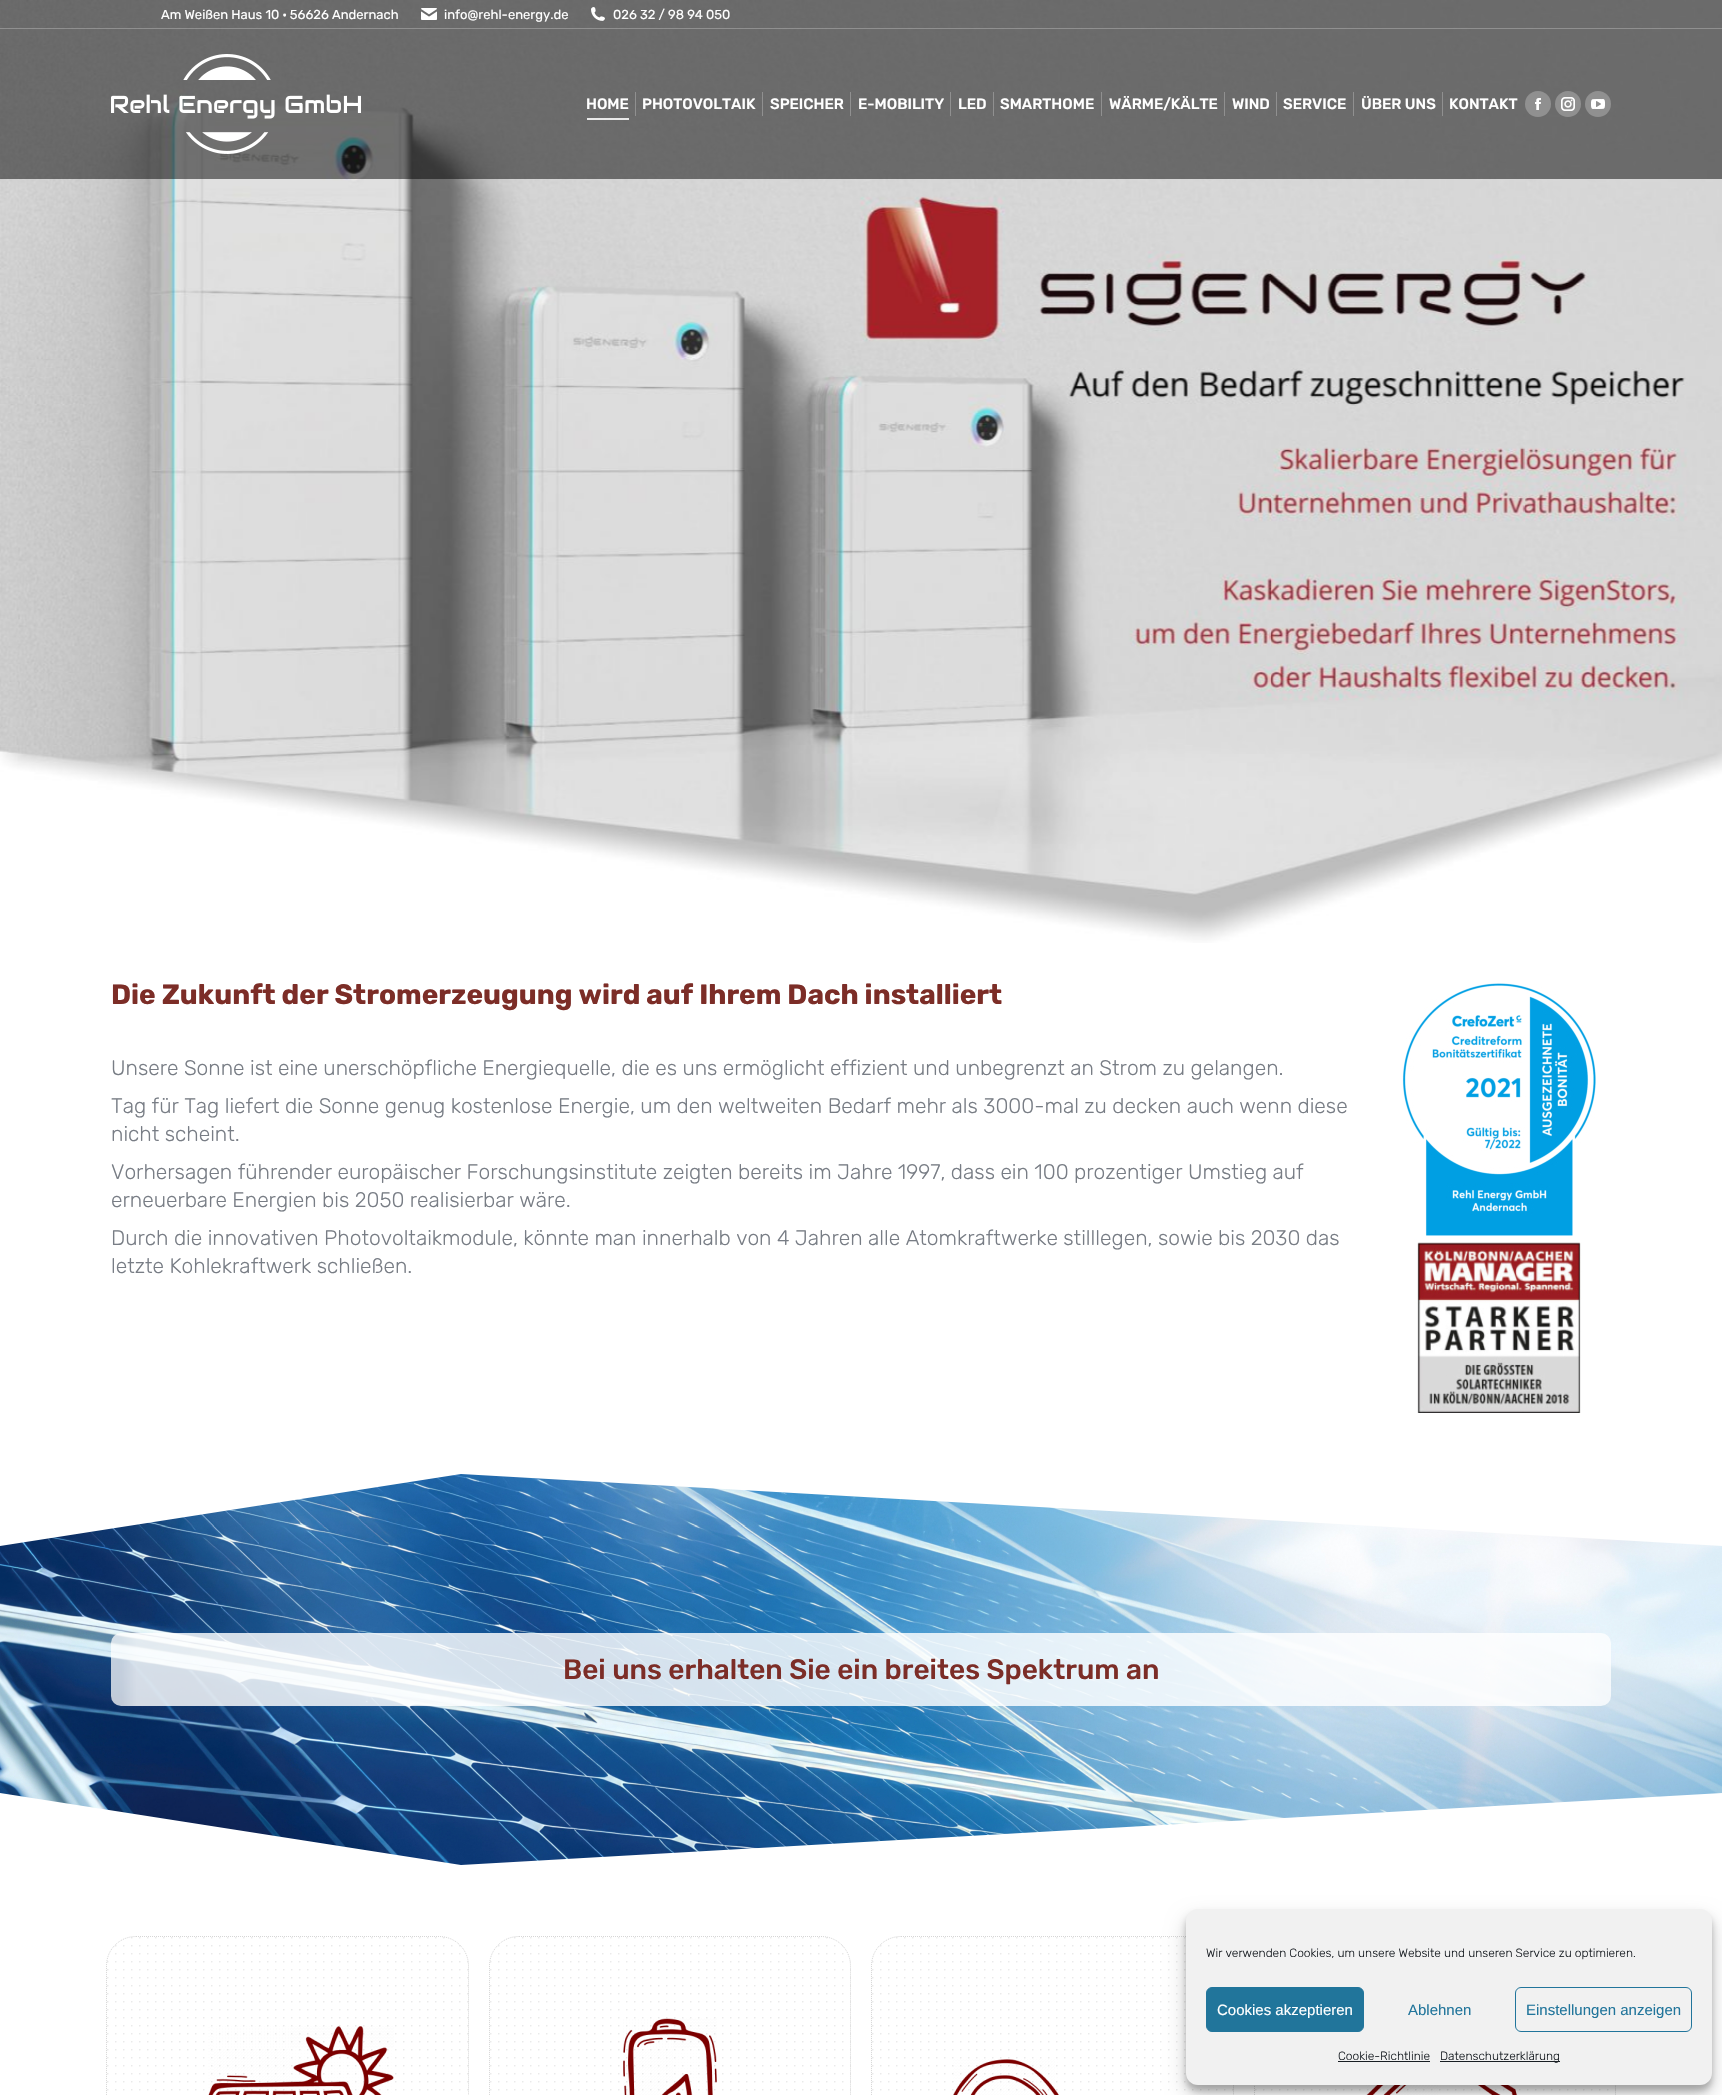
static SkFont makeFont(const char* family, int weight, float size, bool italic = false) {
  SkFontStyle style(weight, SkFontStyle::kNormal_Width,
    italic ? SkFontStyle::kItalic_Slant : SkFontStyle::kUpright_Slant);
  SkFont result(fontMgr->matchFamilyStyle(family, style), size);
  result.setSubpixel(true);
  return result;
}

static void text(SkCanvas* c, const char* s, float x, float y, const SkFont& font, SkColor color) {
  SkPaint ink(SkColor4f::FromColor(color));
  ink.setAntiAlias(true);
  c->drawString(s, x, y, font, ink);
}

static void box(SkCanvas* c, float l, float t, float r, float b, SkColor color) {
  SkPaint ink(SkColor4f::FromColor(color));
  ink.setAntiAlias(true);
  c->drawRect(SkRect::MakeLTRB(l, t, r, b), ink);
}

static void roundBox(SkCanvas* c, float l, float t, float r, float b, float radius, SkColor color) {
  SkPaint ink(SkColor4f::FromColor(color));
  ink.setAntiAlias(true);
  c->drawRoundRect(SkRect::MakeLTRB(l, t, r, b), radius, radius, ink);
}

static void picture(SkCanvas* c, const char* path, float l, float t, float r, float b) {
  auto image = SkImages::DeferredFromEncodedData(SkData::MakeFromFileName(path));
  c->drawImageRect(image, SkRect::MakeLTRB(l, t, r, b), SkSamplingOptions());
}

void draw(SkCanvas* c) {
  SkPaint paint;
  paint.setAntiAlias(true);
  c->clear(0xffffffff);
  picture(c, "img_01.png", 0, 0, 1722, 943);
  box(c, 0, 0, 1722, 179, 0x80000000);
  SkFont face1 = makeFont("Rubik", 400, 13);
  text(c, "Am Weißen Haus 10 · 56626 Andernach", 161, 19, face1, 0xffffffff);
  picture(c, "img_02.png", 421, 8, 437, 20);
  text(c, "info@rehl-energy.de", 444, 19, face1, 0xffffffff);
  picture(c, "img_03.png", 591, 7, 605, 21);
  text(c, "026 32 / 98 94 050", 613, 19, face1, 0xffffffff);
  box(c, 0, 28, 1722, 29, 0x40ffffff);
  picture(c, "img_04.png", 111, 54, 361, 154);
  SkFont face2 = makeFont("Rubik", 500, 15);
  text(c, "HOME", 586, 109, face2, 0xffffffff);
  box(c, 587, 118, 629, 120, 0xd9ffffff);
  box(c, 635, 92, 636, 116, 0xff909090);
  text(c, "PHOTOVOLTAIK", 642, 109, face2, 0xffffffff);
  box(c, 762, 92, 763, 116, 0x40ffffff);
  text(c, "SPEICHER", 770, 109, face2, 0xffffffff);
  box(c, 850, 92, 851, 116, 0xff909090);
  text(c, "E-MOBILITY", 858, 109, face2, 0xffffffff);
  box(c, 950, 92, 951, 116, 0xff909090);
  text(c, "LED", 958, 109, face2, 0xffffffff);
  box(c, 993, 92, 994, 116, 0xff909090);
  text(c, "SMARTHOME", 1000, 109, face2, 0xffffffff);
  box(c, 1101, 92, 1102, 116, 0xff909090);
  text(c, "WÄRME/KÄLTE", 1109, 109, face2, 0xffffffff);
  box(c, 1224, 92, 1225, 116, 0xff909090);
  text(c, "WIND", 1232, 109, face2, 0xffffffff);
  box(c, 1276, 92, 1277, 116, 0xff909090);
  text(c, "SERVICE", 1283, 109, face2, 0xffffffff);
  box(c, 1353, 92, 1354, 116, 0xff909090);
  text(c, "ÜBER UNS", 1361, 109, face2, 0xffffffff);
  box(c, 1442, 92, 1443, 116, 0xff909090);
  text(c, "KONTAKT", 1449, 109, face2, 0xffffffff);
  paint.setColor(0xff909090);
  c->drawCircle(1538, 104, 13, paint);
  picture(c, "img_05.png", 1535, 98, 1541, 110);
  c->drawCircle(1568, 104, 13, paint);
  picture(c, "img_06.png", 1561, 97, 1575, 111);
  c->drawCircle(1598, 104, 13, paint);
  picture(c, "img_07.png", 1591, 99, 1605, 109);
  SkFont face3 = makeFont("Rubik", 700, 28);
  text(c, "Die Zukunft der Stromerzeugung wird auf Ihrem Dach installiert", 111, 1004, face3, 0xff7c2d27);
  SkFont face4 = makeFont("Rubik", 300, 21);
  text(c, "Unsere Sonne ist eine unerschöpfliche Energiequelle, die es uns ermöglicht effizient und unbegrenzt an Strom zu gelangen.", 111, 1075, face4, 0xff787d85);
  text(c, "Tag für Tag liefert die Sonne genug kostenlose Energie, um den weltweiten Bedarf mehr als 3000-mal zu decken auch wenn diese", 111, 1113, face4, 0xff787d85);
  text(c, "nicht scheint.", 111, 1141, face4, 0xff787d85);
  text(c, "Vorhersagen führender europäischer Forschungsinstitute zeigten bereits im Jahre 1997, dass ein 100 prozentiger Umstieg auf", 111, 1179, face4, 0xff787d85);
  text(c, "erneuerbare Energien bis 2050 realisierbar wäre.", 111, 1207, face4, 0xff787d85);
  text(c, "Durch die innovativen Photovoltaikmodule, könnte man innerhalb von 4 Jahren alle Atomkraftwerke stilllegen, sowie bis 2030 das", 111, 1245, face4, 0xff787d85);
  text(c, "letzte Kohlekraftwerk schließen.", 111, 1273, face4, 0xff787d85);
  picture(c, "img_08.png", 1402, 983, 1596, 1413);
  picture(c, "img_09.png", 0, 1474, 1722, 1865);
  paint.setColor(0xffffffff);
  c->drawPath(SkPathBuilder().moveTo(461, 1474).lineTo(0, 1546).lineTo(0, 1446).lineTo(1722, 1446).lineTo(1722, 1546).close().detach(), paint);
  picture(c, "img_10.png", 111, 1633, 1611, 1706);
  SkFont face5 = makeFont("Rubik", 500, 28);
  text(c, "Bei uns erhalten Sie ein breites Spektrum an", 563, 1679, face5, 0xff7c2d27);
  c->drawPath(SkPathBuilder().moveTo(461, 1865).lineTo(0, 1793).lineTo(0, 1893).lineTo(1722, 1893).lineTo(1722, 1793).close().detach(), paint);
  picture(c, "img_11.png", 107, 1937, 469, 2091);
  paint.setStyle(SkPaint::kStroke_Style);
  paint.setStrokeWidth(1);
  paint.setColor(0xffd6d6d6);
  paint.setPathEffect(SkDashPathEffect::Make({{1, 1}}, 0));
  c->drawPath(SkPathBuilder().moveTo(136, 1936.5f).lineTo(439, 1936.5f).cubicTo(455.5f, 1936.5f, 468.5f, 1949.5f, 468.5f, 1966).lineTo(468.5f, 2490).cubicTo(468.5f, 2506.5f, 455.5f, 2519.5f, 439, 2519.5f).lineTo(136, 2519.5f).cubicTo(119.5f, 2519.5f, 106.5f, 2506.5f, 106.5f, 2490).lineTo(106.5f, 1966).cubicTo(106.5f, 1949.5f, 119.5f, 1936.5f, 136, 1936.5f).close().detach(), paint);
  paint.setPathEffect(nullptr);
  picture(c, "img_12.png", 208, 2026, 394, 2095);
  picture(c, "img_13.png", 490, 1937, 851, 2091);
  paint.setPathEffect(SkDashPathEffect::Make({{1, 1}}, 0));
  c->drawPath(SkPathBuilder().moveTo(519, 1936.5f).lineTo(821, 1936.5f).cubicTo(837.5f, 1936.5f, 850.5f, 1949.5f, 850.5f, 1966).lineTo(850.5f, 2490).cubicTo(850.5f, 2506.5f, 837.5f, 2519.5f, 821, 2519.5f).lineTo(519, 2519.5f).cubicTo(502.5f, 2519.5f, 489.5f, 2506.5f, 489.5f, 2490).lineTo(489.5f, 1966).cubicTo(489.5f, 1949.5f, 502.5f, 1936.5f, 519, 1936.5f).close().detach(), paint);
  paint.setPathEffect(nullptr);
  picture(c, "img_14.png", 623, 2018, 717, 2095);
  picture(c, "img_11.png", 872, 1937, 1234, 2091);
  paint.setPathEffect(SkDashPathEffect::Make({{1, 1}}, 0));
  c->drawPath(SkPathBuilder().moveTo(901, 1936.5f).lineTo(1204, 1936.5f).cubicTo(1220.5f, 1936.5f, 1233.5f, 1949.5f, 1233.5f, 1966).lineTo(1233.5f, 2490).cubicTo(1233.5f, 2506.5f, 1220.5f, 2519.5f, 1204, 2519.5f).lineTo(901, 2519.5f).cubicTo(884.5f, 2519.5f, 871.5f, 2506.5f, 871.5f, 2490).lineTo(871.5f, 1966).cubicTo(871.5f, 1949.5f, 884.5f, 1936.5f, 901, 1936.5f).close().detach(), paint);
  paint.setPathEffect(nullptr);
  picture(c, "img_15.png", 953, 2059, 1059, 2095);
  picture(c, "img_16.png", 1255, 2089, 1616, 2091);
  paint.setPathEffect(SkDashPathEffect::Make({{1, 1}}, 0));
  c->drawPath(SkPathBuilder().moveTo(1284, 1936.5f).lineTo(1586, 1936.5f).cubicTo(1602.5f, 1936.5f, 1615.5f, 1949.5f, 1615.5f, 1966).lineTo(1615.5f, 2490).cubicTo(1615.5f, 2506.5f, 1602.5f, 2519.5f, 1586, 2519.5f).lineTo(1284, 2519.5f).cubicTo(1267.5f, 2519.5f, 1254.5f, 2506.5f, 1254.5f, 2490).lineTo(1254.5f, 1966).cubicTo(1254.5f, 1949.5f, 1267.5f, 1936.5f, 1284, 1936.5f).close().detach(), paint);
  paint.setPathEffect(nullptr);
  picture(c, "img_17.png", 1366, 2085, 1518, 2095);
  paint.setStyle(SkPaint::kFill_Style);
  paint.setColor(0x3b000000);
  paint.setMaskFilter(SkMaskFilter::MakeBlur(kNormal_SkBlurStyle, 3));
  c->drawRoundRect(SkRect::MakeLTRB(1186, 1915, 1712, 2091), 12, 12, paint);
  paint.setMaskFilter(nullptr);
  paint.setColor(0x30000000);
  paint.setMaskFilter(SkMaskFilter::MakeBlur(kNormal_SkBlurStyle, 10));
  c->drawRoundRect(SkRect::MakeLTRB(1186, 1919, 1712, 2095), 12, 12, paint);
  paint.setMaskFilter(nullptr);
  roundBox(c, 1186, 1909, 1712, 2085, 12, 0xfff1f1f1);
  SkFont face6 = makeFont("Rubik", 300, 12);
  text(c, "Wir verwenden Cookies, um unsere Website und unseren Service zu optimieren.", 1206, 1957, face6, 0xff191e23);
  paint.setColor(0xff21759b);
  c->drawRoundRect(SkRect::MakeLTRB(1206.5f, 1987.5f, 1363.5f, 2031.5f), 5.5f, 5.5f, paint);
  paint.setStyle(SkPaint::kStroke_Style);
  c->drawRoundRect(SkRect::MakeLTRB(1206.5f, 1987.5f, 1363.5f, 2031.5f), 5.5f, 5.5f, paint);
  SkFont face7 = makeFont("Liberation Sans", 400, 15);
  text(c, "Cookies akzeptieren", 1217, 2015, face7, 0xffffffff);
  text(c, "Ablehnen", 1408, 2015, face7, 0xff21759b);
  c->drawRoundRect(SkRect::MakeLTRB(1515.5f, 1987.5f, 1691.5f, 2031.5f), 5.5f, 5.5f, paint);
  text(c, "Einstellungen anzeigen", 1526, 2015, face7, 0xff21759b);
  text(c, "Cookie-Richtlinie", 1338, 2060, face6, 0xff191e23);
  box(c, 1338, 2061, 1430, 2062, 0xff191e23);
  box(c, 1440, 2061, 1560, 2062, 0xff191e23);
  text(c, "Datenschutzerklärung", 1440, 2060, face6, 0xff191e23);
}
